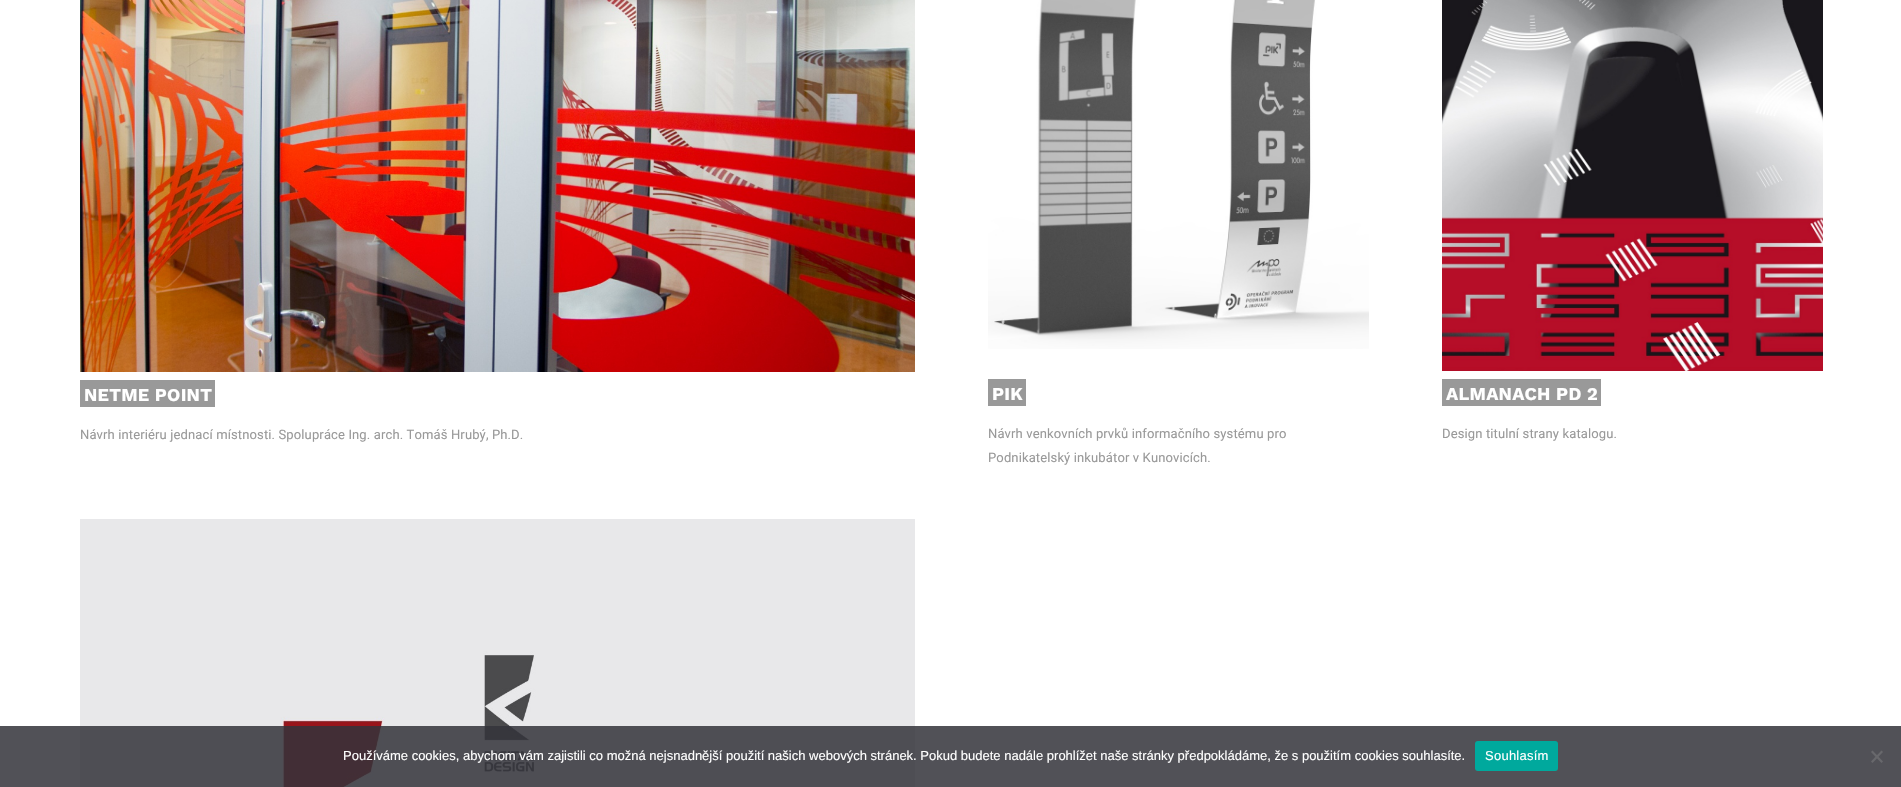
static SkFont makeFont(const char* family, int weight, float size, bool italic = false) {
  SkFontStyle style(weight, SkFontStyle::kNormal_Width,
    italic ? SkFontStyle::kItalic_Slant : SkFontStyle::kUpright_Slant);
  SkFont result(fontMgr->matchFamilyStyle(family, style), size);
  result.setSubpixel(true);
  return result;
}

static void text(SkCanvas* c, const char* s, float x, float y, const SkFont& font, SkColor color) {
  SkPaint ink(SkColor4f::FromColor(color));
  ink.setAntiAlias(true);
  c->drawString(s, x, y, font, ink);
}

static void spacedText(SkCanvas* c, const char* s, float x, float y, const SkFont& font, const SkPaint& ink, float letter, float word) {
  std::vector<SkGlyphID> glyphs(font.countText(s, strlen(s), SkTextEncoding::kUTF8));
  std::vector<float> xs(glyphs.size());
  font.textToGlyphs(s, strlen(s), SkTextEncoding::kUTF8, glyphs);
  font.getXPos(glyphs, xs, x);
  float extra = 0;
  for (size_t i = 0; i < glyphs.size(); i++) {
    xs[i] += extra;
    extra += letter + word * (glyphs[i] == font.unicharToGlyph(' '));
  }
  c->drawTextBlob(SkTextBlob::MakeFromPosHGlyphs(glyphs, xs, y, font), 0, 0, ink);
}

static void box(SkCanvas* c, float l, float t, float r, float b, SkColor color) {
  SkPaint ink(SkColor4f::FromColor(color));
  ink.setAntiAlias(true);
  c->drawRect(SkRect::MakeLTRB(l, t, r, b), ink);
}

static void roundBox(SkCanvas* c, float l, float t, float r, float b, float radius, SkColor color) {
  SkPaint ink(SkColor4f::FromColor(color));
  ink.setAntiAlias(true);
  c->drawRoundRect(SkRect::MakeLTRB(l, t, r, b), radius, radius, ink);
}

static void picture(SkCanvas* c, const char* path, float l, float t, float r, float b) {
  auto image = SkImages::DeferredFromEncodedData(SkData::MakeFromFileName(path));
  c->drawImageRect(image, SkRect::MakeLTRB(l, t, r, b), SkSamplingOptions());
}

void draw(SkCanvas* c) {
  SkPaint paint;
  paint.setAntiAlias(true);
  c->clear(0xffffffff);
  picture(c, "img_01.png", 80, 0, 915, 372);
  box(c, 80, 380, 215, 407, 0xff999999);
  SkFont face1 = makeFont("Work Sans", 700, 18);
  paint.setColor(0xffffffff);
  spacedText(c, "NETME POINT", 84, 401, face1, paint, 0.25f, 0);
  SkFont face2 = makeFont("Roboto", 400, 13);
  paint.setColor(0xff999999);
  spacedText(c, "Návrh interiéru jednací místnosti. Spolupráce Ing. arch. Tomáš Hrubý, Ph.D.", 80, 439, face2, paint, 0.13f, 0);
  picture(c, "img_02.png", 988, 0, 1369, 349);
  box(c, 988, 379, 1026, 406, 0xff999999);
  paint.setColor(0xffffffff);
  spacedText(c, "PIK", 992, 400, face1, paint, 0.25f, 0);
  paint.setColor(0xff999999);
  spacedText(c, "Návrh venkovních prvků informačního systému pro", 988, 438, face2, paint, 0.13f, 0);
  spacedText(c, "Podnikatelský inkubátor v Kunovicích.", 988, 462, face2, paint, 0.13f, 0);
  picture(c, "img_03.png", 1442, 0, 1823, 371);
  box(c, 1442, 379, 1601, 406, 0xff999999);
  paint.setColor(0xffffffff);
  spacedText(c, "ALMANACH PD 2", 1446, 400, face1, paint, 0.25f, 0);
  paint.setColor(0xff999999);
  spacedText(c, "Design titulní strany katalogu.", 1442, 438, face2, paint, 0.13f, 0);
  picture(c, "img_04.png", 80, 519, 915, 787);
  box(c, 0, 726, 1901, 787, 0xd932323a);
  SkFont face3 = makeFont("Liberation Sans", 400, 13);
  text(c, "Používáme cookies, abychom vám zajistili co možná nejsnadnější použití našich webových stránek. Pokud budete nadále prohlížet naše stránky předpokládáme, že s použitím cookies souhlasíte.", 343, 760, face3, 0xffffffff);
  roundBox(c, 1475, 741, 1558, 771, 3, 0xff00a99d);
  paint.setColor(0xffffffff);
  spacedText(c, "Souhlasím", 1485, 760, face3, paint, 0.25f, 0);
  paint.setColor(0xff68686c);
  c->drawPath(SkPathBuilder().moveTo(1881.5f, 750.5f).lineTo(1883, 752).lineTo(1872.5f, 763).lineTo(1871, 761.5f).close().detach(), paint);
  c->drawPath(SkPathBuilder().moveTo(1871, 752).lineTo(1872.5f, 750.5f).lineTo(1883, 761.5f).lineTo(1881.5f, 763).close().detach(), paint);
}
